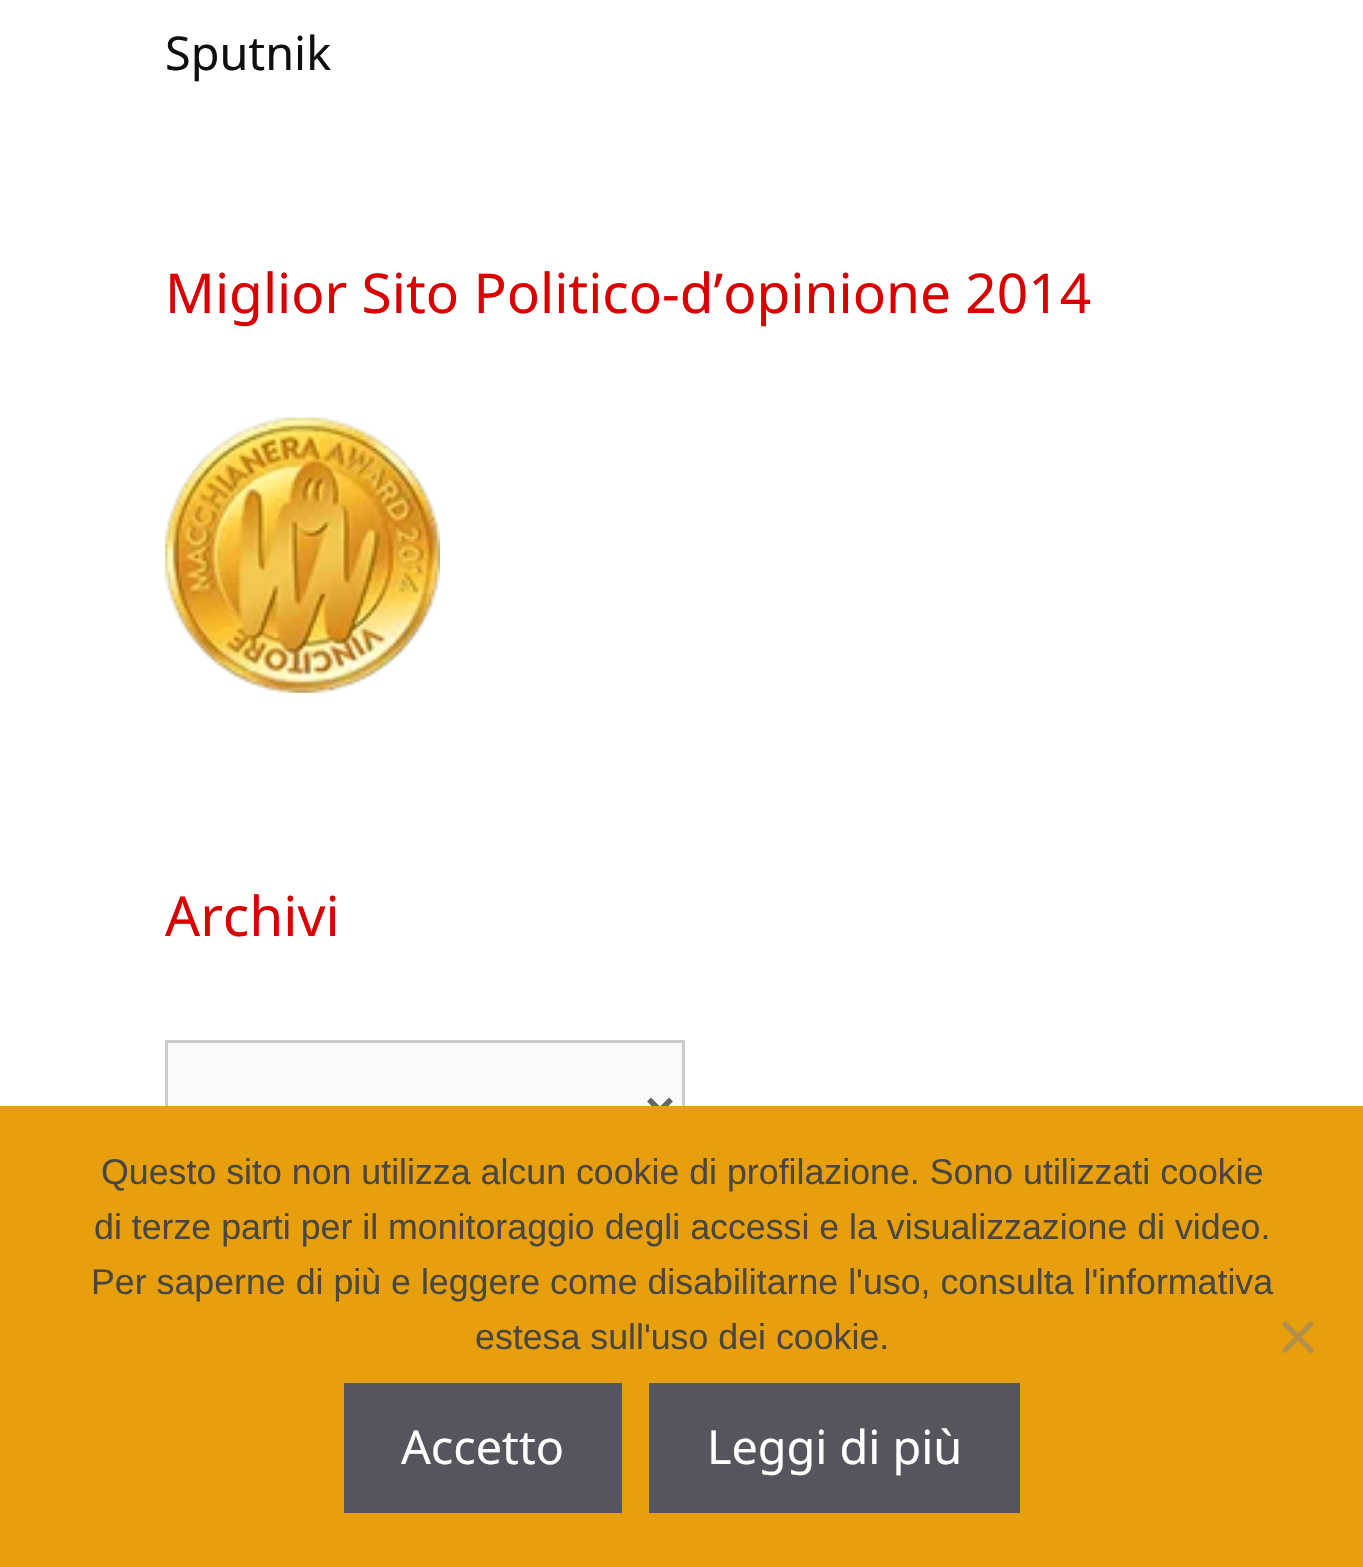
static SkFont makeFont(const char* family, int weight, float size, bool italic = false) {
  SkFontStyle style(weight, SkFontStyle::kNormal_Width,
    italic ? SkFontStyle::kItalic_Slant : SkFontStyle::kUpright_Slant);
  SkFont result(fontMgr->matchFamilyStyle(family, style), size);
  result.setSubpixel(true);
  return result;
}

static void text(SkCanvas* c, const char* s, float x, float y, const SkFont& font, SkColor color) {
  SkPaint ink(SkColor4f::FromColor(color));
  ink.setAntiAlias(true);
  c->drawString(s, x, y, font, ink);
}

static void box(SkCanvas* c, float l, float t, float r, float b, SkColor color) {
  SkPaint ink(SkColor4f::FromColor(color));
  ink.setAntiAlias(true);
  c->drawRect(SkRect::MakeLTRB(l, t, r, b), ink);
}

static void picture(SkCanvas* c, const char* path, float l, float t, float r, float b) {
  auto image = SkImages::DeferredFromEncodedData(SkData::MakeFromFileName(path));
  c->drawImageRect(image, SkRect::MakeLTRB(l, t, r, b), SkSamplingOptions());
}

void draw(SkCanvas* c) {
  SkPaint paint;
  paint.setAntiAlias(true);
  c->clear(0xffffffff);
  SkFont face1 = makeFont("Noto Sans", 400, 46.75f);
  text(c, "Sputnik", 165, 70, face1, 0xff0f0f0f);
  SkFont face2 = makeFont("Noto Sans", 400, 55);
  text(c, "Miglior Sito Politico-d’opinione 2014", 165, 313, face2, 0xffdb0000);
  picture(c, "img_01.png", 165, 417, 440, 693);
  text(c, "Archivi", 165, 936, face2, 0xffdb0000);
  box(c, 168, 1043, 682, 1106, 0xfffafafa);
  paint.setStyle(SkPaint::kStroke_Style);
  paint.setStrokeWidth(3);
  paint.setColor(0xffcccccc);
  c->drawRect(SkRect::MakeLTRB(166.5f, 1041.5f, 683.5f, 1167.5f), paint);
  paint.setStrokeWidth(5.5f);
  paint.setColor(0xff666666);
  c->drawPath(SkPathBuilder().moveTo(649, 1099.5f).lineTo(660, 1110.5f).lineTo(671, 1099.5f).detach(), paint);
  box(c, 0, 1106, 1363, 1567, 0xffe89f0d);
  SkFont face3 = makeFont("Liberation Sans", 400, 35.75f);
  text(c, "Questo sito non utilizza alcun cookie di profilazione. Sono utilizzati cookie", 101, 1184, face3, 0xff494740);
  text(c, "di terze parti per il monitoraggio degli accessi e la visualizzazione di video.", 94, 1239, face3, 0xff494740);
  text(c, "Per saperne di più e leggere come disabilitarne l'uso, consulta l'informativa", 91, 1294, face3, 0xff494740);
  text(c, "estesa sull'uso dei cookie.", 475, 1349, face3, 0xff494740);
  paint.setStyle(SkPaint::kFill_Style);
  paint.setColor(0xffb49047);
  c->drawPath(SkPathBuilder().moveTo(1310.5f, 1320.5f).lineTo(1314.5f, 1324.5f).lineTo(1285.5f, 1353.5f).lineTo(1281.5f, 1350).close().detach(), paint);
  c->drawPath(SkPathBuilder().moveTo(1281.5f, 1324.5f).lineTo(1285.5f, 1320.5f).lineTo(1314.5f, 1350).lineTo(1310.5f, 1353.5f).close().detach(), paint);
  box(c, 344, 1383, 622, 1513, 0xff55555e);
  text(c, "Accetto", 401, 1464, face1, 0xffffffff);
  box(c, 649, 1383, 1020, 1513, 0xff55555e);
  text(c, "Leggi di più", 707, 1464, face1, 0xffffffff);
}
